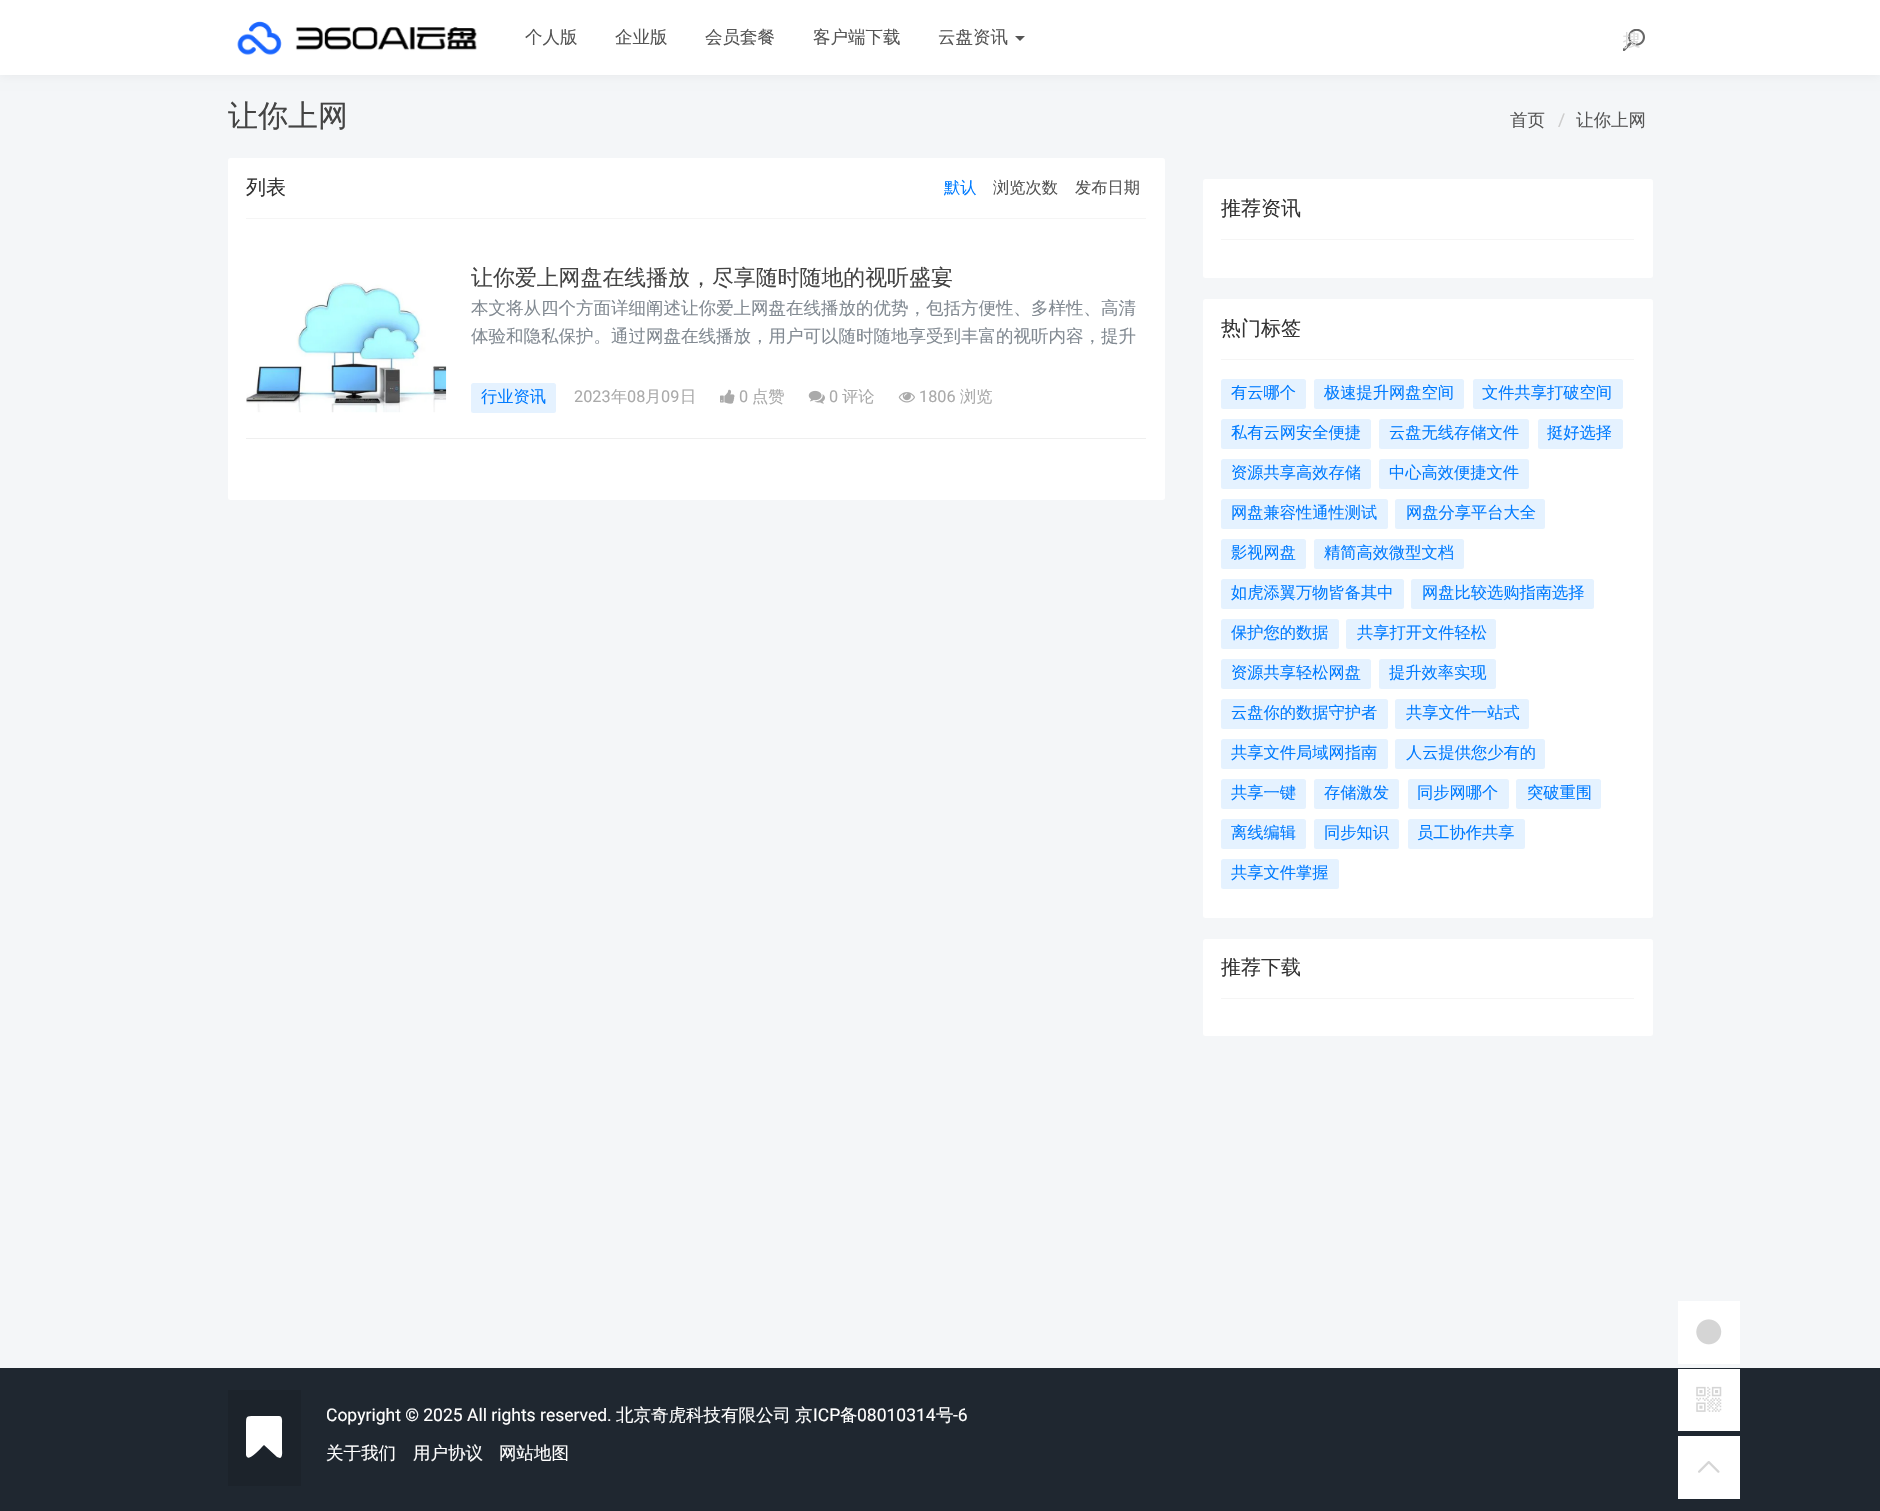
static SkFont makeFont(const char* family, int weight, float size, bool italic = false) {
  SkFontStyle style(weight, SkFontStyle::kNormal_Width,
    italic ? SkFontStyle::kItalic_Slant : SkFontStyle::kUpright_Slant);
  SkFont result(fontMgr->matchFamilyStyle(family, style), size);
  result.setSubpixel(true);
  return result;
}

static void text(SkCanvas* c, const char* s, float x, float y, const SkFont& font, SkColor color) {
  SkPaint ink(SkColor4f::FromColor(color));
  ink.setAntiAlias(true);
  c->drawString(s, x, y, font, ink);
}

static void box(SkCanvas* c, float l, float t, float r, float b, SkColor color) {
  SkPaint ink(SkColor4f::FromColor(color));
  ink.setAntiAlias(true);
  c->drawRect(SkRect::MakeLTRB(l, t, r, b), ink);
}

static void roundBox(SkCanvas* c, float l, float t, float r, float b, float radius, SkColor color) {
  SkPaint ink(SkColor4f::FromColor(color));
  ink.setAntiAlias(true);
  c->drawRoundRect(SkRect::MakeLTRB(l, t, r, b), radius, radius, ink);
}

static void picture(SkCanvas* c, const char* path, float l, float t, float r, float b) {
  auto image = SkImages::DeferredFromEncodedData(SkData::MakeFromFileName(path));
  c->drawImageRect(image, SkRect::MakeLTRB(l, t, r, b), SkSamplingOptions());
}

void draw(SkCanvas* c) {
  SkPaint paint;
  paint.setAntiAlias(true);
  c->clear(0xfff4f6f8);
  paint.setColor(0x0d000000);
  paint.setMaskFilter(SkMaskFilter::MakeBlur(kNormal_SkBlurStyle, 5));
  c->drawRect(SkRect::MakeLTRB(0, 1, 1880, 76), paint);
  paint.setMaskFilter(nullptr);
  box(c, 0, 0, 1880, 75, 0xffffffff);
  picture(c, "img_01.png", 237, 21, 477, 55);
  SkFont face1 = makeFont("WenQuanYi Zen Hei", 500, 17.5f);
  text(c, "个人版", 525, 43, face1, 0xff555555);
  text(c, "企业版", 615, 43, face1, 0xff555555);
  text(c, "会员套餐", 705, 43, face1, 0xff555555);
  text(c, "客户端下载", 813, 43, face1, 0xff555555);
  text(c, "云盘资讯", 938, 43, face1, 0xff555555);
  paint.setColor(0xff555555);
  c->drawPath(SkPathBuilder().moveTo(1015, 36).lineTo(1025, 36).lineTo(1020, 41).close().detach(), paint);
  picture(c, "img_02.png", 1623, 29, 1645, 51);
  text(c, "搜", 1623, 46, face1, 0xffdadada);
  SkFont face2 = makeFont("WenQuanYi Zen Hei", 500, 30);
  text(c, "让你上网", 228, 126, face2, 0xff444444);
  text(c, "首页", 1510, 126, face1, 0xff555555);
  SkFont face3 = makeFont("Roboto", 400, 17.5f);
  text(c, "/", 1558, 126, face3, 0xffcccccc);
  text(c, "让你上网", 1576, 126, face1, 0xff555555);
  roundBox(c, 228, 158, 1165, 500, 2.5f, 0xffffffff);
  box(c, 246, 218, 1146, 219, 0xfff5f5f5);
  SkFont face4 = makeFont("WenQuanYi Zen Hei", 500, 20);
  text(c, "列表", 246, 194, face4, 0xff333333);
  SkFont face5 = makeFont("WenQuanYi Zen Hei", 500, 16.25f);
  text(c, "默认", 944, 193, face5, 0xff007bff);
  text(c, "浏览次数", 993, 193, face5, 0xff555555);
  text(c, "发布日期", 1075, 193, face5, 0xff555555);
  box(c, 246, 438, 1146, 439, 0xffefefef);
  picture(c, "img_03.png", 246, 282, 447, 413);
  SkFont face6 = makeFont("WenQuanYi Zen Hei", 500, 21.9f);
  text(c, "让你爱上网盘在线播放，尽享随时随地的视听盛宴", 471, 285, face6, 0xff444444);
  text(c, "本文将从四个方面详细阐述让你爱上网盘在线播放的优势，包括方便性、多样性、高清", 471, 314, face1, 0xff828a92);
  text(c, "体验和隐私保护。通过网盘在线播放，用户可以随时随地享受到丰富的视听内容，提升", 471, 342, face1, 0xff828a92);
  roundBox(c, 471, 383, 556, 413, 2.5f, 0xffe5f2ff);
  text(c, "行业资讯", 481, 402, face5, 0xff007bff);
  SkFont face7 = makeFont("Roboto", 400, 16.25f);
  text(c, "2023", 574, 402, face7, 0xffaaaaaa);
  text(c, "年", 611, 402, face5, 0xffaaaaaa);
  text(c, "08", 627, 402, face7, 0xffaaaaaa);
  text(c, "月", 645, 402, face5, 0xffaaaaaa);
  text(c, "09", 661, 402, face7, 0xffaaaaaa);
  text(c, "日", 680, 402, face5, 0xffaaaaaa);
  picture(c, "img_04.png", 720, 389, 735, 404);
  text(c, "0", 739, 402, face7, 0xffaaaaaa);
  text(c, "点赞", 752, 402, face5, 0xffaaaaaa);
  picture(c, "img_05.png", 808, 390, 825, 404);
  text(c, "0", 829, 402, face7, 0xffaaaaaa);
  text(c, "评论", 842, 402, face5, 0xffaaaaaa);
  picture(c, "img_06.png", 898, 392, 915, 403);
  text(c, "1806", 919, 402, face7, 0xffaaaaaa);
  text(c, "浏览", 960, 402, face5, 0xffaaaaaa);
  roundBox(c, 1203, 179, 1653, 278, 2.5f, 0xffffffff);
  box(c, 1221, 239, 1634, 240, 0xfff5f5f5);
  text(c, "推荐资讯", 1221, 215, face4, 0xff333333);
  roundBox(c, 1203, 299, 1653, 918, 2.5f, 0xffffffff);
  box(c, 1221, 359, 1634, 360, 0xfff5f5f5);
  text(c, "热门标签", 1221, 335, face4, 0xff333333);
  roundBox(c, 1221, 379, 1306, 409, 2.5f, 0xffe5f2ff);
  text(c, "有云哪个", 1231, 398, face5, 0xff007bff);
  roundBox(c, 1314, 379, 1464, 409, 2.5f, 0xffe5f2ff);
  text(c, "极速提升网盘空间", 1324, 398, face5, 0xff007bff);
  roundBox(c, 1473, 379, 1623, 409, 2.5f, 0xffe5f2ff);
  text(c, "文件共享打破空间", 1482, 398, face5, 0xff007bff);
  roundBox(c, 1221, 419, 1371, 449, 2.5f, 0xffe5f2ff);
  text(c, "私有云网安全便捷", 1231, 438, face5, 0xff007bff);
  roundBox(c, 1379, 419, 1529, 449, 2.5f, 0xffe5f2ff);
  text(c, "云盘无线存储文件", 1389, 438, face5, 0xff007bff);
  roundBox(c, 1538, 419, 1623, 449, 2.5f, 0xffe5f2ff);
  text(c, "挺好选择", 1547, 438, face5, 0xff007bff);
  roundBox(c, 1221, 459, 1371, 489, 2.5f, 0xffe5f2ff);
  text(c, "资源共享高效存储", 1231, 478, face5, 0xff007bff);
  roundBox(c, 1379, 459, 1529, 489, 2.5f, 0xffe5f2ff);
  text(c, "中心高效便捷文件", 1389, 478, face5, 0xff007bff);
  roundBox(c, 1221, 499, 1388, 529, 2.5f, 0xffe5f2ff);
  text(c, "网盘兼容性通性测试", 1231, 518, face5, 0xff007bff);
  roundBox(c, 1395, 499, 1545, 529, 2.5f, 0xffe5f2ff);
  text(c, "网盘分享平台大全", 1406, 518, face5, 0xff007bff);
  roundBox(c, 1221, 539, 1306, 569, 2.5f, 0xffe5f2ff);
  text(c, "影视网盘", 1231, 558, face5, 0xff007bff);
  roundBox(c, 1314, 539, 1464, 569, 2.5f, 0xffe5f2ff);
  text(c, "精简高效微型文档", 1324, 558, face5, 0xff007bff);
  roundBox(c, 1221, 579, 1404, 609, 2.5f, 0xffe5f2ff);
  text(c, "如虎添翼万物皆备其中", 1231, 598, face5, 0xff007bff);
  roundBox(c, 1411, 579, 1594, 609, 2.5f, 0xffe5f2ff);
  text(c, "网盘比较选购指南选择", 1422, 598, face5, 0xff007bff);
  roundBox(c, 1221, 619, 1339, 649, 2.5f, 0xffe5f2ff);
  text(c, "保护您的数据", 1231, 638, face5, 0xff007bff);
  roundBox(c, 1346, 619, 1496, 649, 2.5f, 0xffe5f2ff);
  text(c, "共享打开文件轻松", 1357, 638, face5, 0xff007bff);
  roundBox(c, 1221, 659, 1371, 689, 2.5f, 0xffe5f2ff);
  text(c, "资源共享轻松网盘", 1231, 678, face5, 0xff007bff);
  roundBox(c, 1379, 659, 1496, 689, 2.5f, 0xffe5f2ff);
  text(c, "提升效率实现", 1389, 678, face5, 0xff007bff);
  roundBox(c, 1221, 699, 1388, 729, 2.5f, 0xffe5f2ff);
  text(c, "云盘你的数据守护者", 1231, 718, face5, 0xff007bff);
  roundBox(c, 1395, 699, 1529, 729, 2.5f, 0xffe5f2ff);
  text(c, "共享文件一站式", 1406, 718, face5, 0xff007bff);
  roundBox(c, 1221, 739, 1388, 769, 2.5f, 0xffe5f2ff);
  text(c, "共享文件局域网指南", 1231, 758, face5, 0xff007bff);
  roundBox(c, 1395, 739, 1545, 769, 2.5f, 0xffe5f2ff);
  text(c, "人云提供您少有的", 1406, 758, face5, 0xff007bff);
  roundBox(c, 1221, 779, 1306, 809, 2.5f, 0xffe5f2ff);
  text(c, "共享一键", 1231, 798, face5, 0xff007bff);
  roundBox(c, 1314, 779, 1399, 809, 2.5f, 0xffe5f2ff);
  text(c, "存储激发", 1324, 798, face5, 0xff007bff);
  roundBox(c, 1408, 779, 1509, 809, 2.5f, 0xffe5f2ff);
  text(c, "同步网哪个", 1417, 798, face5, 0xff007bff);
  roundBox(c, 1516, 779, 1601, 809, 2.5f, 0xffe5f2ff);
  text(c, "突破重围", 1527, 798, face5, 0xff007bff);
  roundBox(c, 1221, 819, 1306, 849, 2.5f, 0xffe5f2ff);
  text(c, "离线编辑", 1231, 838, face5, 0xff007bff);
  roundBox(c, 1314, 819, 1399, 849, 2.5f, 0xffe5f2ff);
  text(c, "同步知识", 1324, 838, face5, 0xff007bff);
  roundBox(c, 1408, 819, 1525, 849, 2.5f, 0xffe5f2ff);
  text(c, "员工协作共享", 1417, 838, face5, 0xff007bff);
  roundBox(c, 1221, 859, 1339, 889, 2.5f, 0xffe5f2ff);
  text(c, "共享文件掌握", 1231, 878, face5, 0xff007bff);
  roundBox(c, 1203, 939, 1653, 1036, 2.5f, 0xffffffff);
  box(c, 1221, 998, 1634, 999, 0xfff5f5f5);
  text(c, "推荐下载", 1221, 974, face4, 0xff333333);
  box(c, 0, 1368, 1880, 1511, 0xff1f2730);
  box(c, 228, 1390, 301, 1486, 0xff1c232b);
  paint.setColor(0xffffffff);
  c->drawPath(SkPathBuilder().moveTo(279, 1416).cubicTo(283, 1416, 282, 1422, 282, 1425).lineTo(282, 1449).cubicTo(282, 1451, 283, 1457, 280, 1458).lineTo(277, 1457).lineTo(264, 1445).cubicTo(258, 1451, 248, 1463, 246, 1455).lineTo(246, 1425).cubicTo(246, 1416, 246, 1416, 254, 1416).close().detach(), paint);
  text(c, "Copyright © 2025 All rights reserved.", 326, 1421, face3, 0xffffffff);
  text(c, "北京奇虎科技有限公司", 616, 1421, face1, 0xffffffff);
  text(c, "京", 795, 1421, face1, 0xffffffff);
  text(c, "ICP", 813, 1421, face3, 0xffffffff);
  text(c, "备", 840, 1421, face1, 0xffffffff);
  text(c, "08010314", 857, 1421, face3, 0xffffffff);
  text(c, "号", 936, 1421, face1, 0xffffffff);
  text(c, "-6", 953, 1421, face3, 0xffffffff);
  text(c, "关于我们", 326, 1459, face1, 0xffffffff);
  text(c, "用户协议", 413, 1459, face1, 0xffffffff);
  text(c, "网站地图", 499, 1459, face1, 0xffffffff);
  box(c, 1678, 1301, 1740, 1364, 0xffffffff);
  picture(c, "img_07.png", 1696, 1319, 1722, 1345);
  box(c, 1678, 1369, 1740, 1431, 0xffffffff);
  picture(c, "img_08.png", 1696, 1386, 1722, 1412);
  box(c, 1678, 1436, 1740, 1499, 0xffffffff);
  picture(c, "img_09.png", 1698, 1461, 1720, 1473);
}
